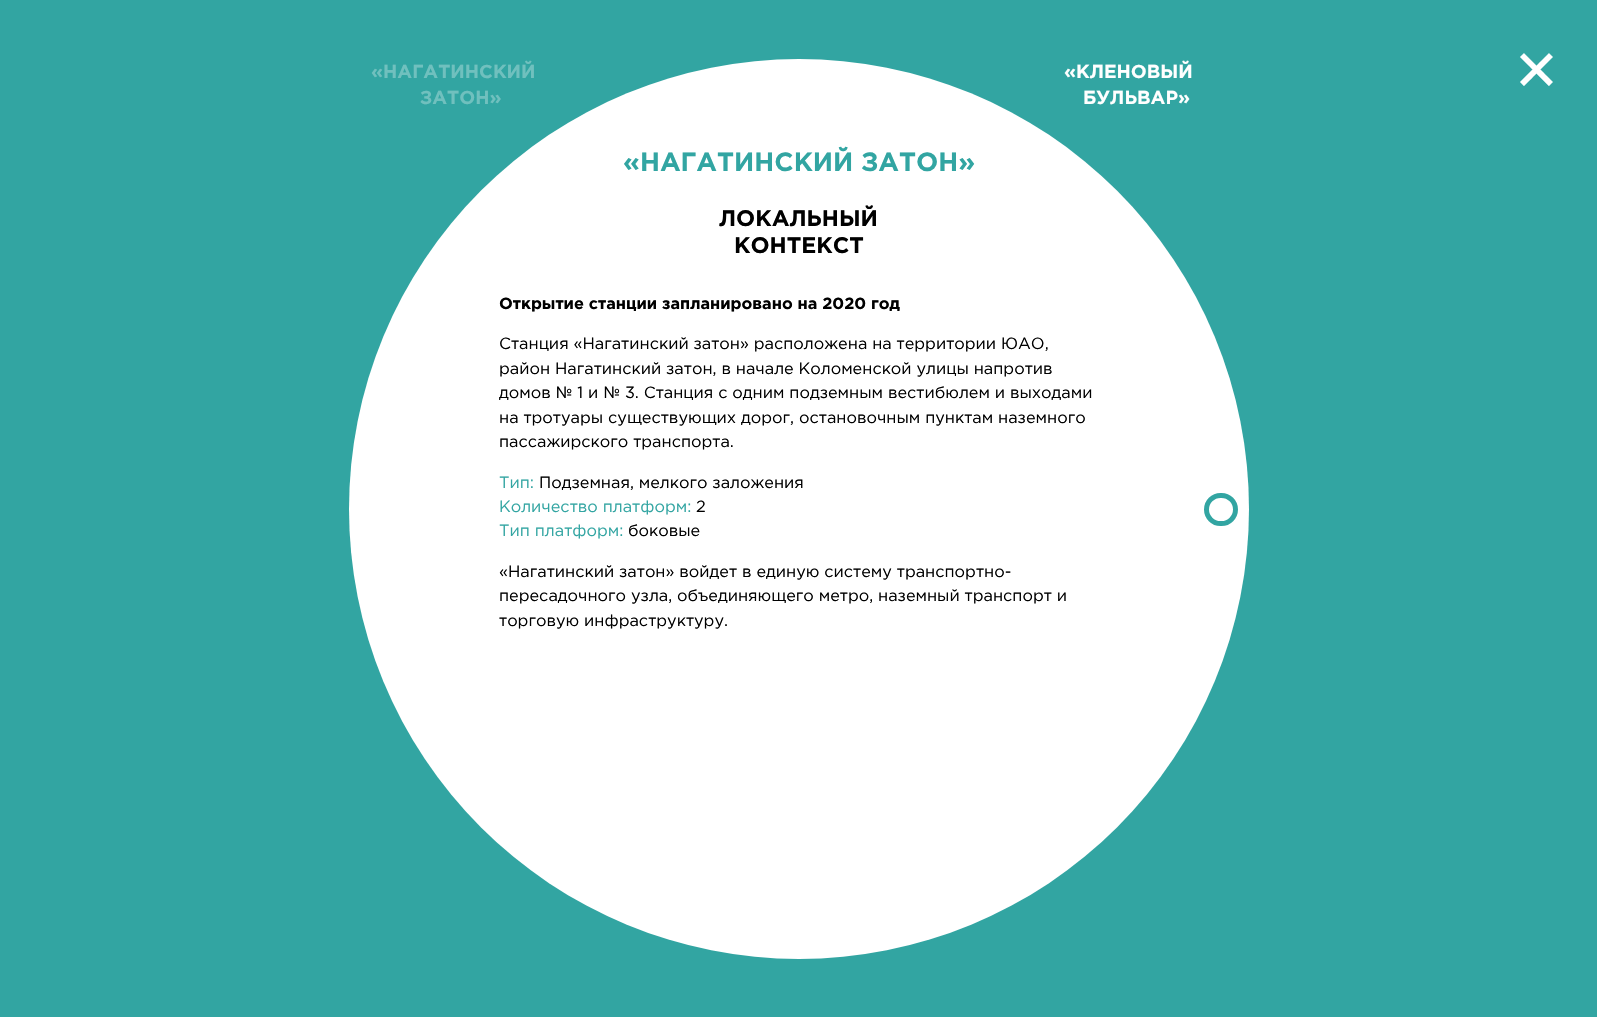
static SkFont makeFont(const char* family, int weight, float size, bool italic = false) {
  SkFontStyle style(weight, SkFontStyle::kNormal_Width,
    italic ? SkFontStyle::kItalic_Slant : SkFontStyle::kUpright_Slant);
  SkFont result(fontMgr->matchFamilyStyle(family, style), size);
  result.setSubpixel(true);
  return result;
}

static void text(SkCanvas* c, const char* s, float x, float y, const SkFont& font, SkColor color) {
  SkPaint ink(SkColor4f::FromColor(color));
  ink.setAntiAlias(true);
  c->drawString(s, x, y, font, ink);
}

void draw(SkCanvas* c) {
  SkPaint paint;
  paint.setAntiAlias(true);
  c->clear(0xff32a5a2);
  paint.setColor(0xffffffff);
  c->drawCircle(799, 509, 450, paint);
  SkFont face1 = makeFont("Gotham", 700, 18.75f);
  text(c, "«НАГАТИНСКИЙ", 371, 78, face1, 0xff70c0be);
  text(c, "ЗАТОН»", 420, 104, face1, 0xff70c0be);
  text(c, "«КЛЕНОВЫЙ", 1064, 78, face1, 0xffffffff);
  text(c, "БУЛЬВАР»", 1083, 104, face1, 0xffffffff);
  SkFont face2 = makeFont("Gotham", 700, 26.25f);
  text(c, "«НАГАТИНСКИЙ ЗАТОН»", 623, 171, face2, 0xff32a5a2);
  SkFont face3 = makeFont("Gotham", 700, 22.5f);
  text(c, "ЛОКАЛЬНЫЙ", 719, 226, face3, 0xff000000);
  text(c, "КОНТЕКСТ", 734, 253, face3, 0xff000000);
  SkFont face4 = makeFont("Gotham", 700, 16.25f);
  text(c, "Открытие станции запланировано на 2020 год", 499, 309, face4, 0xff000000);
  SkFont face5 = makeFont("Gotham", 400, 16.25f);
  text(c, "Станция «Нагатинский затон» расположена на территории ЮАО,", 499, 349, face5, 0xff000000);
  text(c, "район Нагатинский затон, в начале Коломенской улицы напротив", 499, 374, face5, 0xff000000);
  text(c, "домов № 1 и № 3. Станция с одним подземным вестибюлем и выходами", 499, 398, face5, 0xff000000);
  text(c, "на тротуары существующих дорог, остановочным пунктам наземного", 499, 423, face5, 0xff000000);
  text(c, "пассажирского транспорта.", 499, 447, face5, 0xff000000);
  text(c, "Тип:", 499, 488, face5, 0xff32a5a2);
  text(c, "Подземная, мелкого заложения", 539, 488, face5, 0xff000000);
  text(c, "Количество платформ:", 499, 512, face5, 0xff32a5a2);
  text(c, "2", 696, 512, face5, 0xff000000);
  text(c, "Тип платформ:", 499, 536, face5, 0xff32a5a2);
  text(c, "боковые", 628, 536, face5, 0xff000000);
  text(c, "«Нагатинский затон» войдет в единую систему транспортно-", 499, 577, face5, 0xff000000);
  text(c, "пересадочного узла, объединяющего метро, наземный транспорт и", 499, 601, face5, 0xff000000);
  text(c, "торговую инфраструктуру.", 499, 626, face5, 0xff000000);
  paint.setStyle(SkPaint::kStroke_Style);
  paint.setStrokeWidth(5);
  paint.setColor(0xff32a5a2);
  c->drawRoundRect(SkRect::MakeLTRB(1206.5f, 495.5f, 1235.5f, 523.5f), 14, 14, paint);
  SkFont face6 = makeFont("DejaVu Sans", 400, 56);
  text(c, "✕", 1513, 90, face6, 0xffffffff);
}
